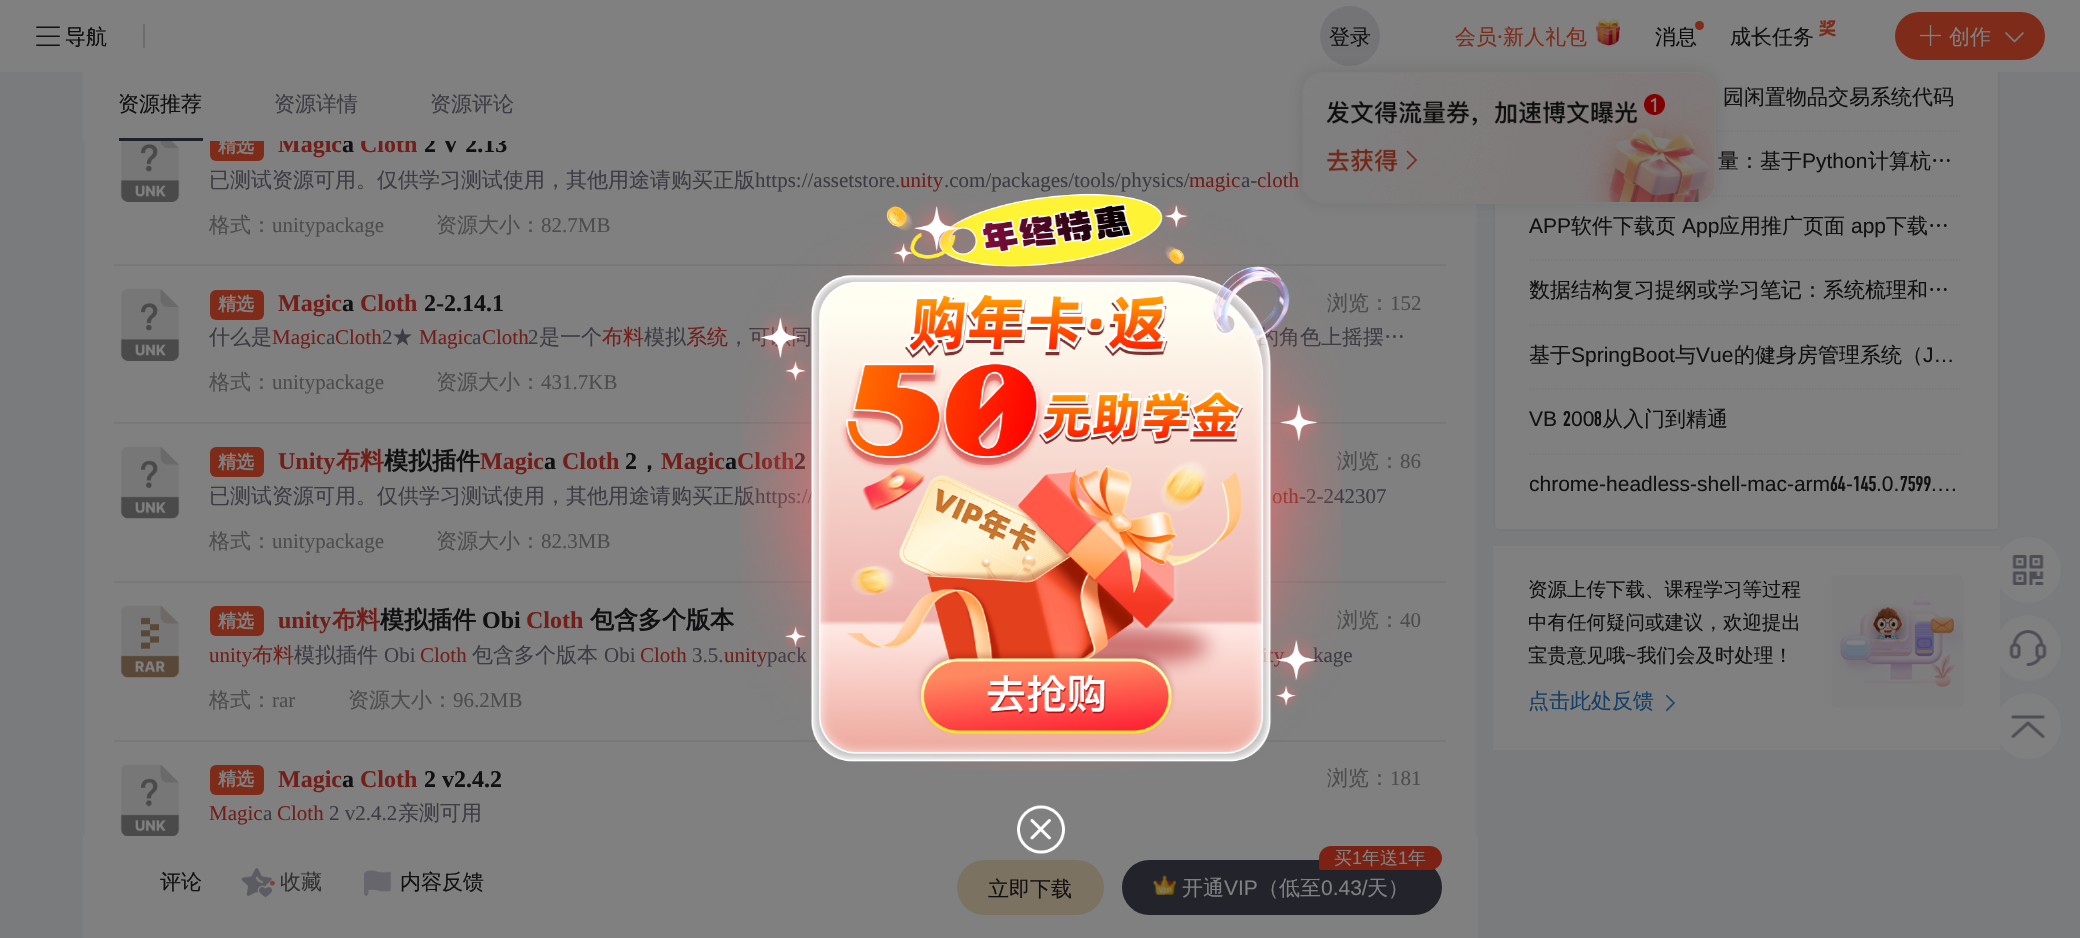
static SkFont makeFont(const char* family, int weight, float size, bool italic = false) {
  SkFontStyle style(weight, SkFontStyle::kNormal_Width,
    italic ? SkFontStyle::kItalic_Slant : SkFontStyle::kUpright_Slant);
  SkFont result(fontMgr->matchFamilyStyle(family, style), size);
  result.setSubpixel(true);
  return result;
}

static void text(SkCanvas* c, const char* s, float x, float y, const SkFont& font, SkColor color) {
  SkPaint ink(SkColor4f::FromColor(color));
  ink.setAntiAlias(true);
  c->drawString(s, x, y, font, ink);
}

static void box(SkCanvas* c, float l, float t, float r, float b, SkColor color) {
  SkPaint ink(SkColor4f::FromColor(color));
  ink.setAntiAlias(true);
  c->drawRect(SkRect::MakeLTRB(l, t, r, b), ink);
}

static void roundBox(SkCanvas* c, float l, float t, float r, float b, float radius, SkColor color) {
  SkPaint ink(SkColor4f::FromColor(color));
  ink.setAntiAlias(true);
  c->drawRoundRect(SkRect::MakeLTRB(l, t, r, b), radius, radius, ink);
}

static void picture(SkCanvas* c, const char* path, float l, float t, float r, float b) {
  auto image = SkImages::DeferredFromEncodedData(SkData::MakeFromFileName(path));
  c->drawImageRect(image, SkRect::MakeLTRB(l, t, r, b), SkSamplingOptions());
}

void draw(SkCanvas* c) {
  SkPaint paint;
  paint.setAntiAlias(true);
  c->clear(0xff797b7c);
  box(c, 85, 141, 1476, 836, 0xff808080);
  paint.setStyle(SkPaint::kStroke_Style);
  paint.setStrokeWidth(2);
  paint.setColor(0xff7c7c7e);
  c->drawRect(SkRect::MakeLTRB(84, -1, 1477, 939), paint);
  paint.setStyle(SkPaint::kFill_Style);
  paint.setColor(0xff808080);
  c->drawRoundRect(SkRect::MakeLTRB(1494, -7, 1999, 530), 5, 5, paint);
  paint.setStyle(SkPaint::kStroke_Style);
  paint.setColor(0xff787879);
  c->drawRoundRect(SkRect::MakeLTRB(1494, -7, 1999, 530), 5, 5, paint);
  box(c, 0, 0, 2080, 72, 0xff808080);
  picture(c, "img_01.png", 36, 26, 60, 46);
  SkFont face1 = makeFont("WenQuanYi Zen Hei", 500, 21);
  text(c, "导航", 65, 44, face1, 0xff0d0d0d);
  roundBox(c, 143, 24, 145, 48, 1, 0xff6c6c6c);
  paint.setStyle(SkPaint::kFill_Style);
  paint.setColor(0xff747477);
  c->drawCircle(1350, 36, 30, paint);
  text(c, "登录", 1329, 44, face1, 0xff111113);
  text(c, "会员", 1455, 44, face1, 0xff7e2b19);
  SkFont face2 = makeFont("Roboto", 500, 21);
  text(c, "·", 1497, 44, face2, 0xff7e2b19);
  text(c, "新人礼包", 1503, 44, face1, 0xff7e2b19);
  picture(c, "img_02.png", 1596, 18, 1620, 46);
  text(c, "消息", 1655, 44, face1, 0xff0d0d0d);
  paint.setColor(0xff7e2b19);
  c->drawCircle(1699.5f, 25.5f, 4.5f, paint);
  text(c, "成长任务", 1730, 44, face1, 0xff111113);
  picture(c, "img_03.png", 1819, 20, 1836, 37);
  roundBox(c, 1895, 12, 2045, 60, 24, 0xff7e2b19);
  picture(c, "img_04.png", 1920, 25, 1941, 46);
  text(c, "创作", 1949, 44, face1, 0xff808080);
  picture(c, "img_05.png", 2004, 31, 2025, 43);
  roundBox(c, 210, 131, 264, 161, 6, 0xff7e2b19);
  SkFont face3 = makeFont("Liberation Serif", 700, 24);
  text(c, "Magic", 278, 152, face3, 0xff721f1a);
  text(c, "a", 342, 152, face3, 0xff111113);
  text(c, "Cloth", 360, 152, face3, 0xff721f1a);
  text(c, "2 V 2.13", 424, 152, face3, 0xff111113);
  box(c, 83, 72, 1322, 141, 0xff808080);
  paint.setStyle(SkPaint::kStroke_Style);
  paint.setStrokeWidth(1.5f);
  paint.setColor(0xff787879);
  paint.setPathEffect(SkDashPathEffect::Make({{1.5f, 1.5f}}, 0));
  c->drawPath(SkPathBuilder().moveTo(1530, 131).lineTo(1962, 131).detach(), paint);
  paint.setPathEffect(nullptr);
  paint.setPathEffect(SkDashPathEffect::Make({{1.5f, 1.5f}}, 0));
  c->drawPath(SkPathBuilder().moveTo(1530, 196).lineTo(1962, 196).detach(), paint);
  paint.setPathEffect(nullptr);
  paint.setStyle(SkPaint::kFill_Style);
  paint.setColor(0x30343434);
  paint.setMaskFilter(SkMaskFilter::MakeBlur(kNormal_SkBlurStyle, 8));
  c->drawRoundRect(SkRect::MakeLTRB(1302, 71, 1716, 203), 21, 21, paint);
  paint.setMaskFilter(nullptr);
  picture(c, "img_06.png", 1302, 72, 1716, 204);
  text(c, "资源推荐", 118, 111, face1, 0xff111113);
  text(c, "资源详情", 274, 111, face1, 0xff3c3c44);
  text(c, "资源评论", 430, 111, face1, 0xff3c3c44);
  box(c, 119, 138, 203, 141, 0xff1d212b);
  picture(c, "img_07.png", 120, 141, 180, 202);
  SkFont face4 = makeFont("WenQuanYi Zen Hei", 700, 18);
  text(c, "精选", 218, 152, face4, 0xff808080);
  text(c, "已测试资源可用。仅供学习测试使用，其他用途请购买正版", 209, 187, face1, 0xff3c3c44);
  SkFont face5 = makeFont("Liberation Serif", 400, 21);
  text(c, "https://assetstore.", 755, 187, face5, 0xff3c3c44);
  text(c, "unity", 900, 187, face5, 0xff721f1a);
  text(c, ".com/packages/tools/physics/", 944, 187, face5, 0xff3c3c44);
  text(c, "magic", 1189, 187, face5, 0xff721f1a);
  text(c, "a-", 1241, 187, face5, 0xff3c3c44);
  text(c, "cloth", 1257, 187, face5, 0xff721f1a);
  text(c, "格式：", 209, 232, face1, 0xff4d4d4d);
  text(c, "unitypackage", 272, 232, face5, 0xff4d4d4d);
  text(c, "资源大小：", 436, 232, face1, 0xff4d4d4d);
  text(c, "82.7MB", 541, 232, face5, 0xff4d4d4d);
  box(c, 114, 264, 1446, 266, 0xff787879);
  picture(c, "img_08.png", 120, 289, 180, 361);
  roundBox(c, 210, 290, 264, 320, 6, 0xff7e2b19);
  text(c, "精选", 218, 310, face4, 0xff808080);
  text(c, "Magic", 278, 311, face3, 0xff721f1a);
  text(c, "a", 342, 311, face3, 0xff111113);
  text(c, "Cloth", 360, 311, face3, 0xff721f1a);
  text(c, "2-2.14.1", 424, 311, face3, 0xff111113);
  text(c, "浏览：", 1327, 310, face1, 0xff4d4d4d);
  text(c, "152", 1390, 310, face5, 0xff4d4d4d);
  text(c, "什么是", 209, 344, face1, 0xff3c3c44);
  text(c, "Magic", 272, 344, face5, 0xff721f1a);
  text(c, "a", 326, 344, face5, 0xff3c3c44);
  text(c, "Cloth", 335, 344, face5, 0xff721f1a);
  text(c, "2", 382, 344, face5, 0xff3c3c44);
  text(c, "★", 392, 344, face1, 0xff3c3c44);
  text(c, "Magic", 419, 344, face5, 0xff721f1a);
  text(c, "a", 472, 344, face5, 0xff3c3c44);
  text(c, "Cloth", 482, 344, face5, 0xff721f1a);
  text(c, "2", 528, 344, face5, 0xff3c3c44);
  text(c, "是一个", 539, 344, face1, 0xff3c3c44);
  text(c, "布料", 602, 344, face1, 0xff721f1a);
  text(c, "模拟", 644, 344, face1, 0xff3c3c44);
  text(c, "系统", 686, 344, face1, 0xff721f1a);
  text(c, "，可以同", 728, 344, face1, 0xff3c3c44);
  text(c, "的角色上摇摆…", 1258, 344, face1, 0xff3c3c44);
  text(c, "格式：", 209, 389, face1, 0xff4d4d4d);
  text(c, "unitypackage", 272, 389, face5, 0xff4d4d4d);
  text(c, "资源大小：", 436, 389, face1, 0xff4d4d4d);
  text(c, "431.7KB", 541, 389, face5, 0xff4d4d4d);
  box(c, 114, 422, 1446, 424, 0xff787879);
  picture(c, "img_09.png", 120, 446, 180, 519);
  roundBox(c, 210, 447, 264, 477, 6, 0xff7e2b19);
  text(c, "精选", 218, 468, face4, 0xff808080);
  text(c, "Unity", 278, 469, face3, 0xff721f1a);
  SkFont face6 = makeFont("WenQuanYi Zen Hei", 700, 24);
  text(c, "布料", 336, 469, face6, 0xff721f1a);
  text(c, "模拟插件", 384, 469, face6, 0xff111113);
  text(c, "Magic", 480, 469, face3, 0xff721f1a);
  text(c, "a", 544, 469, face3, 0xff111113);
  text(c, "Cloth", 562, 469, face3, 0xff721f1a);
  text(c, "2", 625, 469, face3, 0xff111113);
  text(c, "，", 637, 469, face6, 0xff111113);
  text(c, "Magic", 661, 469, face3, 0xff721f1a);
  text(c, "a", 725, 469, face3, 0xff111113);
  text(c, "Cloth", 737, 469, face3, 0xff721f1a);
  text(c, "2", 794, 469, face3, 0xff111113);
  text(c, "浏览：", 1337, 468, face1, 0xff4d4d4d);
  text(c, "86", 1400, 468, face5, 0xff4d4d4d);
  text(c, "已测试资源可用。仅供学习测试使用，其他用途请购买正版", 209, 503, face1, 0xff3c3c44);
  text(c, "https://", 755, 503, face5, 0xff3c3c44);
  text(c, "oth", 1272, 503, face5, 0xff721f1a);
  text(c, "-2-242307", 1299, 503, face5, 0xff3c3c44);
  text(c, "格式：", 209, 548, face1, 0xff4d4d4d);
  text(c, "unitypackage", 272, 548, face5, 0xff4d4d4d);
  text(c, "资源大小：", 436, 548, face1, 0xff4d4d4d);
  text(c, "82.3MB", 541, 548, face5, 0xff4d4d4d);
  box(c, 114, 581, 1446, 583, 0xff787879);
  picture(c, "img_10.png", 120, 605, 180, 678);
  roundBox(c, 210, 606, 264, 636, 6, 0xff7e2b19);
  text(c, "精选", 218, 627, face4, 0xff808080);
  text(c, "unity", 278, 628, face3, 0xff721f1a);
  text(c, "布料", 332, 628, face6, 0xff721f1a);
  text(c, "模拟插件", 380, 628, face6, 0xff111113);
  text(c, "Obi", 482, 628, face3, 0xff111113);
  text(c, "Cloth", 526, 628, face3, 0xff721f1a);
  text(c, "包含多个版本", 590, 628, face6, 0xff111113);
  text(c, "浏览：", 1337, 627, face1, 0xff4d4d4d);
  text(c, "40", 1400, 627, face5, 0xff4d4d4d);
  text(c, "unity", 209, 662, face5, 0xff721f1a);
  text(c, "布料", 252, 662, face1, 0xff721f1a);
  text(c, "模拟插件", 294, 662, face1, 0xff3c3c44);
  text(c, "Obi", 384, 662, face5, 0xff3c3c44);
  text(c, "Cloth", 420, 662, face5, 0xff721f1a);
  text(c, "包含多个版本", 472, 662, face1, 0xff3c3c44);
  text(c, "Obi", 604, 662, face5, 0xff3c3c44);
  text(c, "Cloth", 640, 662, face5, 0xff721f1a);
  text(c, "3.5.", 692, 662, face5, 0xff3c3c44);
  text(c, "unity", 724, 662, face5, 0xff721f1a);
  text(c, "pack", 767, 662, face5, 0xff3c3c44);
  text(c, "ity", 1262, 662, face5, 0xff721f1a);
  text(c, "kage", 1313, 662, face5, 0xff3c3c44);
  text(c, "格式：", 209, 707, face1, 0xff4d4d4d);
  text(c, "rar", 272, 707, face5, 0xff4d4d4d);
  text(c, "资源大小：", 348, 707, face1, 0xff4d4d4d);
  text(c, "96.2MB", 453, 707, face5, 0xff4d4d4d);
  box(c, 114, 740, 1446, 742, 0xff787879);
  picture(c, "img_11.png", 120, 764, 180, 836);
  roundBox(c, 210, 765, 264, 795, 6, 0xff7e2b19);
  text(c, "精选", 218, 785, face4, 0xff808080);
  text(c, "Magic", 278, 787, face3, 0xff721f1a);
  text(c, "a", 342, 787, face3, 0xff111113);
  text(c, "Cloth", 360, 787, face3, 0xff721f1a);
  text(c, "2 v2.4.2", 424, 787, face3, 0xff111113);
  text(c, "浏览：", 1327, 785, face1, 0xff4d4d4d);
  text(c, "181", 1390, 785, face5, 0xff4d4d4d);
  text(c, "Magic", 209, 820, face5, 0xff721f1a);
  text(c, "a", 263, 820, face5, 0xff3c3c44);
  text(c, "Cloth", 277, 820, face5, 0xff721f1a);
  text(c, "2 v2.4.2", 329, 820, face5, 0xff3c3c44);
  text(c, "亲测可用", 398, 820, face1, 0xff3c3c44);
  box(c, 83, 836, 1478, 938, 0xff808080);
  text(c, "评论", 160, 889, face1, 0xff111113);
  picture(c, "img_12.png", 241, 868, 275, 898);
  text(c, "收藏", 280, 889, face1, 0xff323234);
  picture(c, "img_13.png", 364, 870, 392, 896);
  text(c, "内容反馈", 400, 889, face1, 0xff111113);
  paint.setColor(0xff7c7262);
  c->drawRoundRect(SkRect::MakeLTRB(958, 861, 1103, 914), 26.5f, 26.5f, paint);
  paint.setStyle(SkPaint::kStroke_Style);
  paint.setStrokeWidth(2);
  c->drawRoundRect(SkRect::MakeLTRB(958, 861, 1103, 914), 26.5f, 26.5f, paint);
  text(c, "立即下载", 988, 896, face1, 0xff111113);
  paint.setStyle(SkPaint::kFill_Style);
  paint.setColor(0xff22232b);
  c->drawRoundRect(SkRect::MakeLTRB(1123, 861, 1441, 914), 26.5f, 26.5f, paint);
  paint.setStyle(SkPaint::kStroke_Style);
  c->drawRoundRect(SkRect::MakeLTRB(1123, 861, 1441, 914), 26.5f, 26.5f, paint);
  paint.setStyle(SkPaint::kFill_Style);
  paint.setColor(0xff7c2214);
  c->drawPath(SkPathBuilder().moveTo(1331, 846).lineTo(1430, 846).cubicTo(1436.5f, 846, 1442, 851.5f, 1442, 858).cubicTo(1442, 864.5f, 1436.5f, 870, 1430, 870).lineTo(1321, 870).cubicTo(1320, 870, 1319, 869, 1319, 868).lineTo(1319, 858).cubicTo(1319, 851.5f, 1324.5f, 846, 1331, 846).close().detach(), paint);
  SkFont face7 = makeFont("WenQuanYi Zen Hei", 500, 18);
  text(c, "买", 1334, 864, face7, 0xff808080);
  SkFont face8 = makeFont("Liberation Sans", 400, 18);
  text(c, "1", 1352, 864, face8, 0xff808080);
  text(c, "年送", 1362, 864, face7, 0xff808080);
  text(c, "1", 1398, 864, face8, 0xff808080);
  text(c, "年", 1408, 864, face7, 0xff808080);
  picture(c, "img_14.png", 1153, 875, 1176, 895);
  text(c, "开通", 1182, 895, face1, 0xff808080);
  SkFont face9 = makeFont("Liberation Sans", 400, 21);
  text(c, "VIP", 1224, 895, face9, 0xff808080);
  text(c, "（低至", 1258, 895, face1, 0xff808080);
  text(c, "0.43/", 1321, 895, face9, 0xff808080);
  text(c, "天）", 1367, 895, face1, 0xff808080);
  text(c, "园闲置物品交易系统代码", 1723, 104, face1, 0xff111113);
  text(c, "量：基于", 1718, 168, face1, 0xff111113);
  text(c, "Python", 1802, 168, face9, 0xff111113);
  text(c, "计算杭…", 1868, 168, face1, 0xff111113);
  paint.setStyle(SkPaint::kStroke_Style);
  paint.setStrokeWidth(1.5f);
  paint.setColor(0xff787879);
  paint.setPathEffect(SkDashPathEffect::Make({{1.5f, 1.5f}}, 0));
  c->drawPath(SkPathBuilder().moveTo(1530, 260).lineTo(1962, 260).detach(), paint);
  paint.setPathEffect(nullptr);
  text(c, "APP", 1529, 233, face9, 0xff111113);
  text(c, "软件下载页", 1571, 233, face1, 0xff111113);
  text(c, "App", 1682, 233, face9, 0xff111113);
  text(c, "应用推广页面", 1719, 233, face1, 0xff111113);
  text(c, "app", 1851, 233, face9, 0xff111113);
  text(c, "下载…", 1886, 233, face1, 0xff111113);
  paint.setPathEffect(SkDashPathEffect::Make({{1.5f, 1.5f}}, 0));
  c->drawPath(SkPathBuilder().moveTo(1530, 325).lineTo(1962, 325).detach(), paint);
  paint.setPathEffect(nullptr);
  c->save();
  c->clipRect(SkRect::MakeLTRB(1530, 261, 1962, 324));
  text(c, "数据结构复习提纲或学习笔记：系统梳理和…", 1529, 297, face1, 0xff111113);
  c->restore();
  paint.setPathEffect(SkDashPathEffect::Make({{1.5f, 1.5f}}, 0));
  c->drawPath(SkPathBuilder().moveTo(1530, 389).lineTo(1962, 389).detach(), paint);
  paint.setPathEffect(nullptr);
  text(c, "基于", 1529, 362, face1, 0xff111113);
  text(c, "SpringBoot", 1571, 362, face9, 0xff111113);
  text(c, "与", 1675, 362, face1, 0xff111113);
  text(c, "Vue", 1696, 362, face9, 0xff111113);
  text(c, "的健身房管理系统（", 1734, 362, face1, 0xff111113);
  text(c, "J…", 1923, 362, face9, 0xff111113);
  paint.setPathEffect(SkDashPathEffect::Make({{1.5f, 1.5f}}, 0));
  c->drawPath(SkPathBuilder().moveTo(1530, 454).lineTo(1962, 454).detach(), paint);
  paint.setPathEffect(nullptr);
  text(c, "VB", 1529, 426, face9, 0xff111113);
  SkFont face10 = makeFont("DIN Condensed", 700, 21);
  text(c, "2", 1563, 426, face10, 0xff111113);
  text(c, "00", 1571, 426, face9, 0xff111113);
  text(c, "8", 1594, 426, face10, 0xff111113);
  text(c, "从入门到精通", 1602, 426, face1, 0xff111113);
  text(c, "chrome-headless-shell-mac-arm", 1529, 491, face9, 0xff111113);
  text(c, "64", 1830, 491, face10, 0xff111113);
  text(c, "-", 1846, 491, face9, 0xff111113);
  text(c, "145", 1853, 491, face10, 0xff111113);
  text(c, ".0.", 1876, 491, face9, 0xff111113);
  text(c, "7599", 1900, 491, face10, 0xff111113);
  text(c, ".…", 1931, 491, face9, 0xff111113);
  box(c, 1493, 546, 2000, 750, 0xff808080);
  SkFont face11 = makeFont("WenQuanYi Zen Hei", 500, 19.5f);
  text(c, "资源上传下载、课程学习等过程", 1528, 596, face11, 0xff111113);
  text(c, "中有任何疑问或建议，欢迎提出", 1528, 629, face11, 0xff111113);
  text(c, "宝贵意见哦", 1528, 662, face11, 0xff111113);
  SkFont face12 = makeFont("Liberation Sans", 400, 19.5f);
  text(c, "~", 1625, 662, face12, 0xff111113);
  text(c, "我们会及时处理！", 1637, 662, face11, 0xff111113);
  text(c, "点击此处反馈", 1528, 708, face1, 0xff143e66);
  picture(c, "img_15.png", 1665, 694, 1675, 712);
  picture(c, "img_16.png", 1831, 575, 1964, 708);
  picture(c, "img_17.png", 741, 193, 1341, 770);
  picture(c, "img_18.png", 1017, 805, 1065, 854);
  paint.setStyle(SkPaint::kFill_Style);
  paint.setColor(0xff808080);
  c->drawCircle(2028, 570, 33, paint);
  picture(c, "img_19.png", 2012, 555, 2044, 585);
  c->drawCircle(2028, 648, 33, paint);
  picture(c, "img_20.png", 2009, 630, 2047, 666);
  c->drawCircle(2028, 726, 33, paint);
  picture(c, "img_21.png", 2011, 715, 2045, 738);
}
